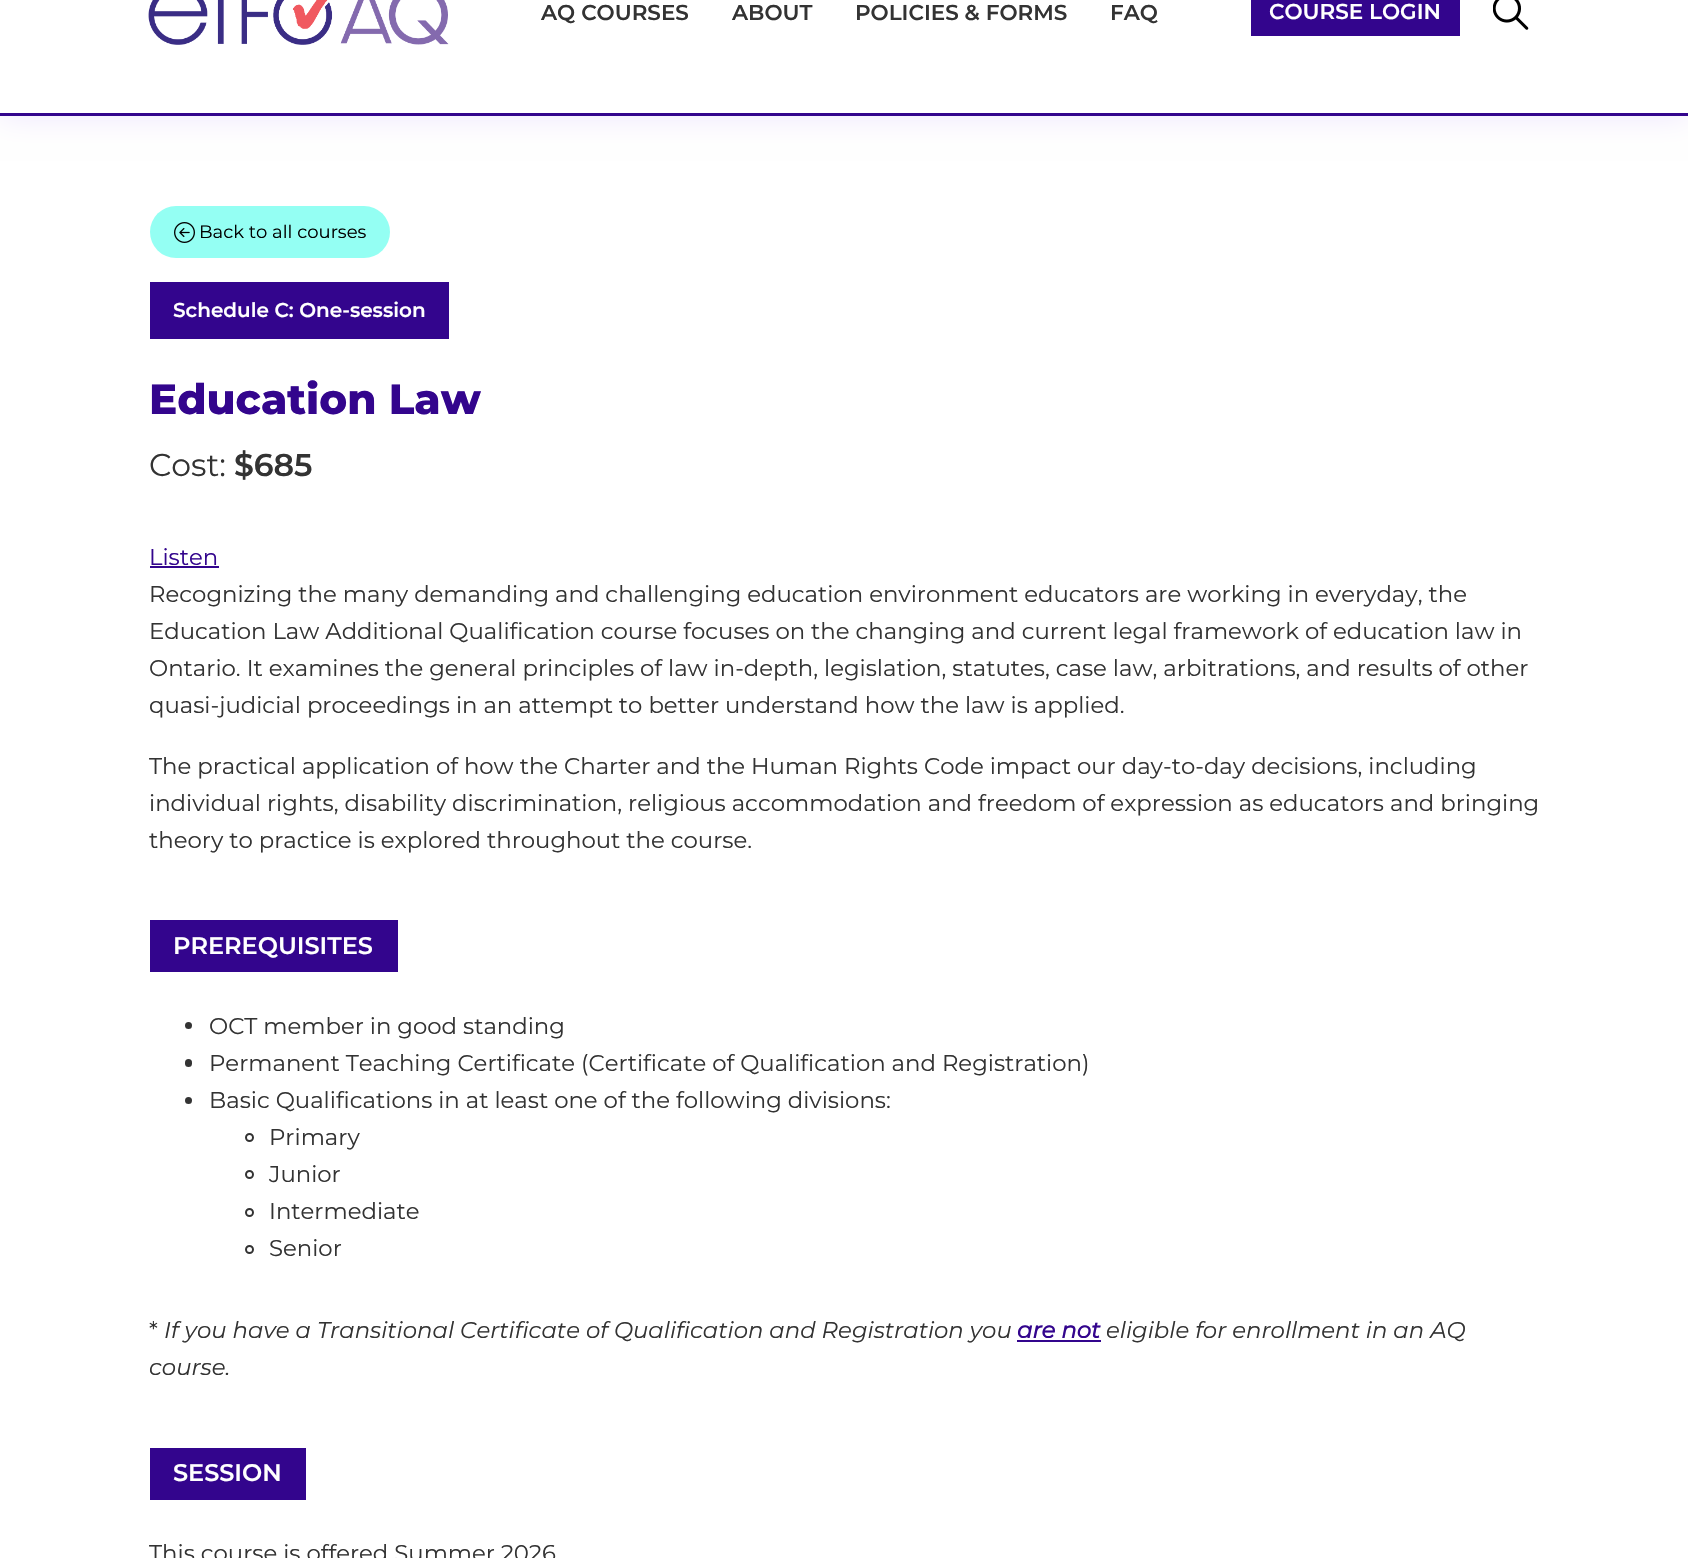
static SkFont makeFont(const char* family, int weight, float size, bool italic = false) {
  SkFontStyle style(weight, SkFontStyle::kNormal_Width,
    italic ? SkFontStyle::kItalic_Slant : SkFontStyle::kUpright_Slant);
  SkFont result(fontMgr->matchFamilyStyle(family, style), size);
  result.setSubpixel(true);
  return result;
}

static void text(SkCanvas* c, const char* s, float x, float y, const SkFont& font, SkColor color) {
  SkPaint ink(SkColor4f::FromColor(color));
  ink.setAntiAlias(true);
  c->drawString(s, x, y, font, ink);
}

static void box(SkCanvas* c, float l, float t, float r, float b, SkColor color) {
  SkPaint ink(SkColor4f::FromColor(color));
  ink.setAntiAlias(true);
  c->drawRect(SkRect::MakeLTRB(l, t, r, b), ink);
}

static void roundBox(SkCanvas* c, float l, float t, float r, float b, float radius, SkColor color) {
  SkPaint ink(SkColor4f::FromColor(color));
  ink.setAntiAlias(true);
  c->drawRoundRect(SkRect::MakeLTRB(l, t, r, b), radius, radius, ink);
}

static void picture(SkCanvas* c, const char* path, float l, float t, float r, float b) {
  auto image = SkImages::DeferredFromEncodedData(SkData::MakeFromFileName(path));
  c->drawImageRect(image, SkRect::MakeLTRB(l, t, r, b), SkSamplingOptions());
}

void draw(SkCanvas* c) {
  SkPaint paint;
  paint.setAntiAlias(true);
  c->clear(0xffffffff);
  paint.setColor(0xffede5fe);
  paint.setMaskFilter(SkMaskFilter::MakeBlur(kNormal_SkBlurStyle, 15));
  c->drawRect(SkRect::MakeLTRB(0, -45, 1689, 116), paint);
  paint.setMaskFilter(nullptr);
  box(c, 0, 0, 1688, 113, 0xffffffff);
  box(c, 0, 113, 1688, 116, 0xff33058d);
  picture(c, "img_01.png", 148, 0, 449, 45);
  SkFont face1 = makeFont("Montserrat", 600, 21.5f);
  text(c, "AQ COURSES", 541, 20, face1, 0xff333333);
  text(c, "ABOUT", 732, 20, face1, 0xff333333);
  text(c, "POLICIES & FORMS", 855, 20, face1, 0xff333333);
  text(c, "FAQ", 1110, 20, face1, 0xff333333);
  box(c, 1251, 0, 1460, 36, 0xff33058d);
  text(c, "COURSE LOGIN", 1269, 19, face1, 0xffffffff);
  picture(c, "img_02.png", 1493, 0, 1529, 30);
  roundBox(c, 150, 206, 390, 258, 26, 0xff94fff3);
  picture(c, "img_03.png", 174, 222, 195, 243);
  SkFont face2 = makeFont("Montserrat", 400, 18);
  text(c, "Back to all courses", 199, 238, face2, 0xff000000);
  box(c, 150, 282, 449, 339, 0xff33058d);
  SkFont face3 = makeFont("Montserrat", 600, 20);
  text(c, "Schedule C: One-session", 173, 317, face3, 0xffffffff);
  SkFont face4 = makeFont("Montserrat", 800, 42);
  text(c, "Education Law", 149, 414, face4, 0xff33058d);
  SkFont face5 = makeFont("Montserrat", 400, 31.5f);
  text(c, "Cost:", 149, 476, face5, 0xff333333);
  SkFont face6 = makeFont("Montserrat", 600, 31.5f);
  text(c, "$685", 234, 476, face6, 0xff333333);
  SkFont face7 = makeFont("Montserrat", 400, 22.8f);
  text(c, "Listen", 149, 565, face7, 0xff33058d);
  box(c, 150, 566, 219, 568, 0xff33058d);
  text(c, "Recognizing the many demanding and challenging education environment educators are working in everyday, the", 149, 602, face7, 0xff333333);
  text(c, "Education Law Additional Qualification course focuses on the changing and current legal framework of education law in", 149, 639, face7, 0xff333333);
  text(c, "Ontario. It examines the general principles of law in-depth, legislation, statutes, case law, arbitrations, and results of other", 149, 676, face7, 0xff333333);
  text(c, "quasi-judicial proceedings in an attempt to better understand how the law is applied.", 149, 713, face7, 0xff333333);
  text(c, "The practical application of how the Charter and the Human Rights Code impact our day-to-day decisions, including", 149, 774, face7, 0xff333333);
  text(c, "individual rights, disability discrimination, religious accommodation and freedom of expression as educators and bringing", 149, 811, face7, 0xff333333);
  text(c, "theory to practice is explored throughout the course.", 149, 848, face7, 0xff333333);
  box(c, 150, 920, 398, 972, 0xff33058d);
  SkFont face8 = makeFont("Montserrat", 600, 24);
  text(c, "PREREQUISITES", 173, 954, face8, 0xffffffff);
  paint.setColor(0xff333333);
  c->drawCircle(188.5f, 1025.5f, 3.5f, paint);
  text(c, "OCT member in good standing", 209, 1034, face7, 0xff333333);
  roundBox(c, 185, 1059, 192, 1067, 3.5f, 0xff333333);
  text(c, "Permanent Teaching Certificate (Certificate of Qualification and Registration)", 209, 1071, face7, 0xff333333);
  c->drawCircle(188.5f, 1100.5f, 3.5f, paint);
  text(c, "Basic Qualifications in at least one of the following divisions:", 209, 1108, face7, 0xff333333);
  paint.setStyle(SkPaint::kStroke_Style);
  paint.setStrokeWidth(2);
  c->drawCircle(249.5f, 1137.5f, 3.5f, paint);
  text(c, "Primary", 269, 1145, face7, 0xff333333);
  c->drawCircle(249.5f, 1174.5f, 3.5f, paint);
  text(c, "Junior", 269, 1182, face7, 0xff333333);
  c->drawCircle(249.5f, 1212.5f, 3.5f, paint);
  text(c, "Intermediate", 269, 1219, face7, 0xff333333);
  c->drawCircle(249.5f, 1249.5f, 3.5f, paint);
  text(c, "Senior", 269, 1256, face7, 0xff333333);
  text(c, "*", 149, 1338, face7, 0xff333333);
  SkFont face9 = makeFont("Montserrat", 100, 22.8f, true);
  text(c, "If you have a Transitional Certificate of Qualification and Registration you", 164, 1338, face9, 0xff333333);
  SkFont face10 = makeFont("Montserrat", 700, 22.8f, true);
  text(c, "are not", 1017, 1338, face10, 0xff33058d);
  box(c, 1017, 1340, 1101, 1342, 0xff33058d);
  text(c, "eligible for enrollment in an AQ", 1106, 1338, face9, 0xff333333);
  text(c, "course.", 149, 1375, face9, 0xff333333);
  box(c, 150, 1448, 306, 1500, 0xff33058d);
  text(c, "SESSION", 173, 1481, face8, 0xffffffff);
  text(c, "This course is offered Summer 2026", 149, 1561, face7, 0xff333333);
}
